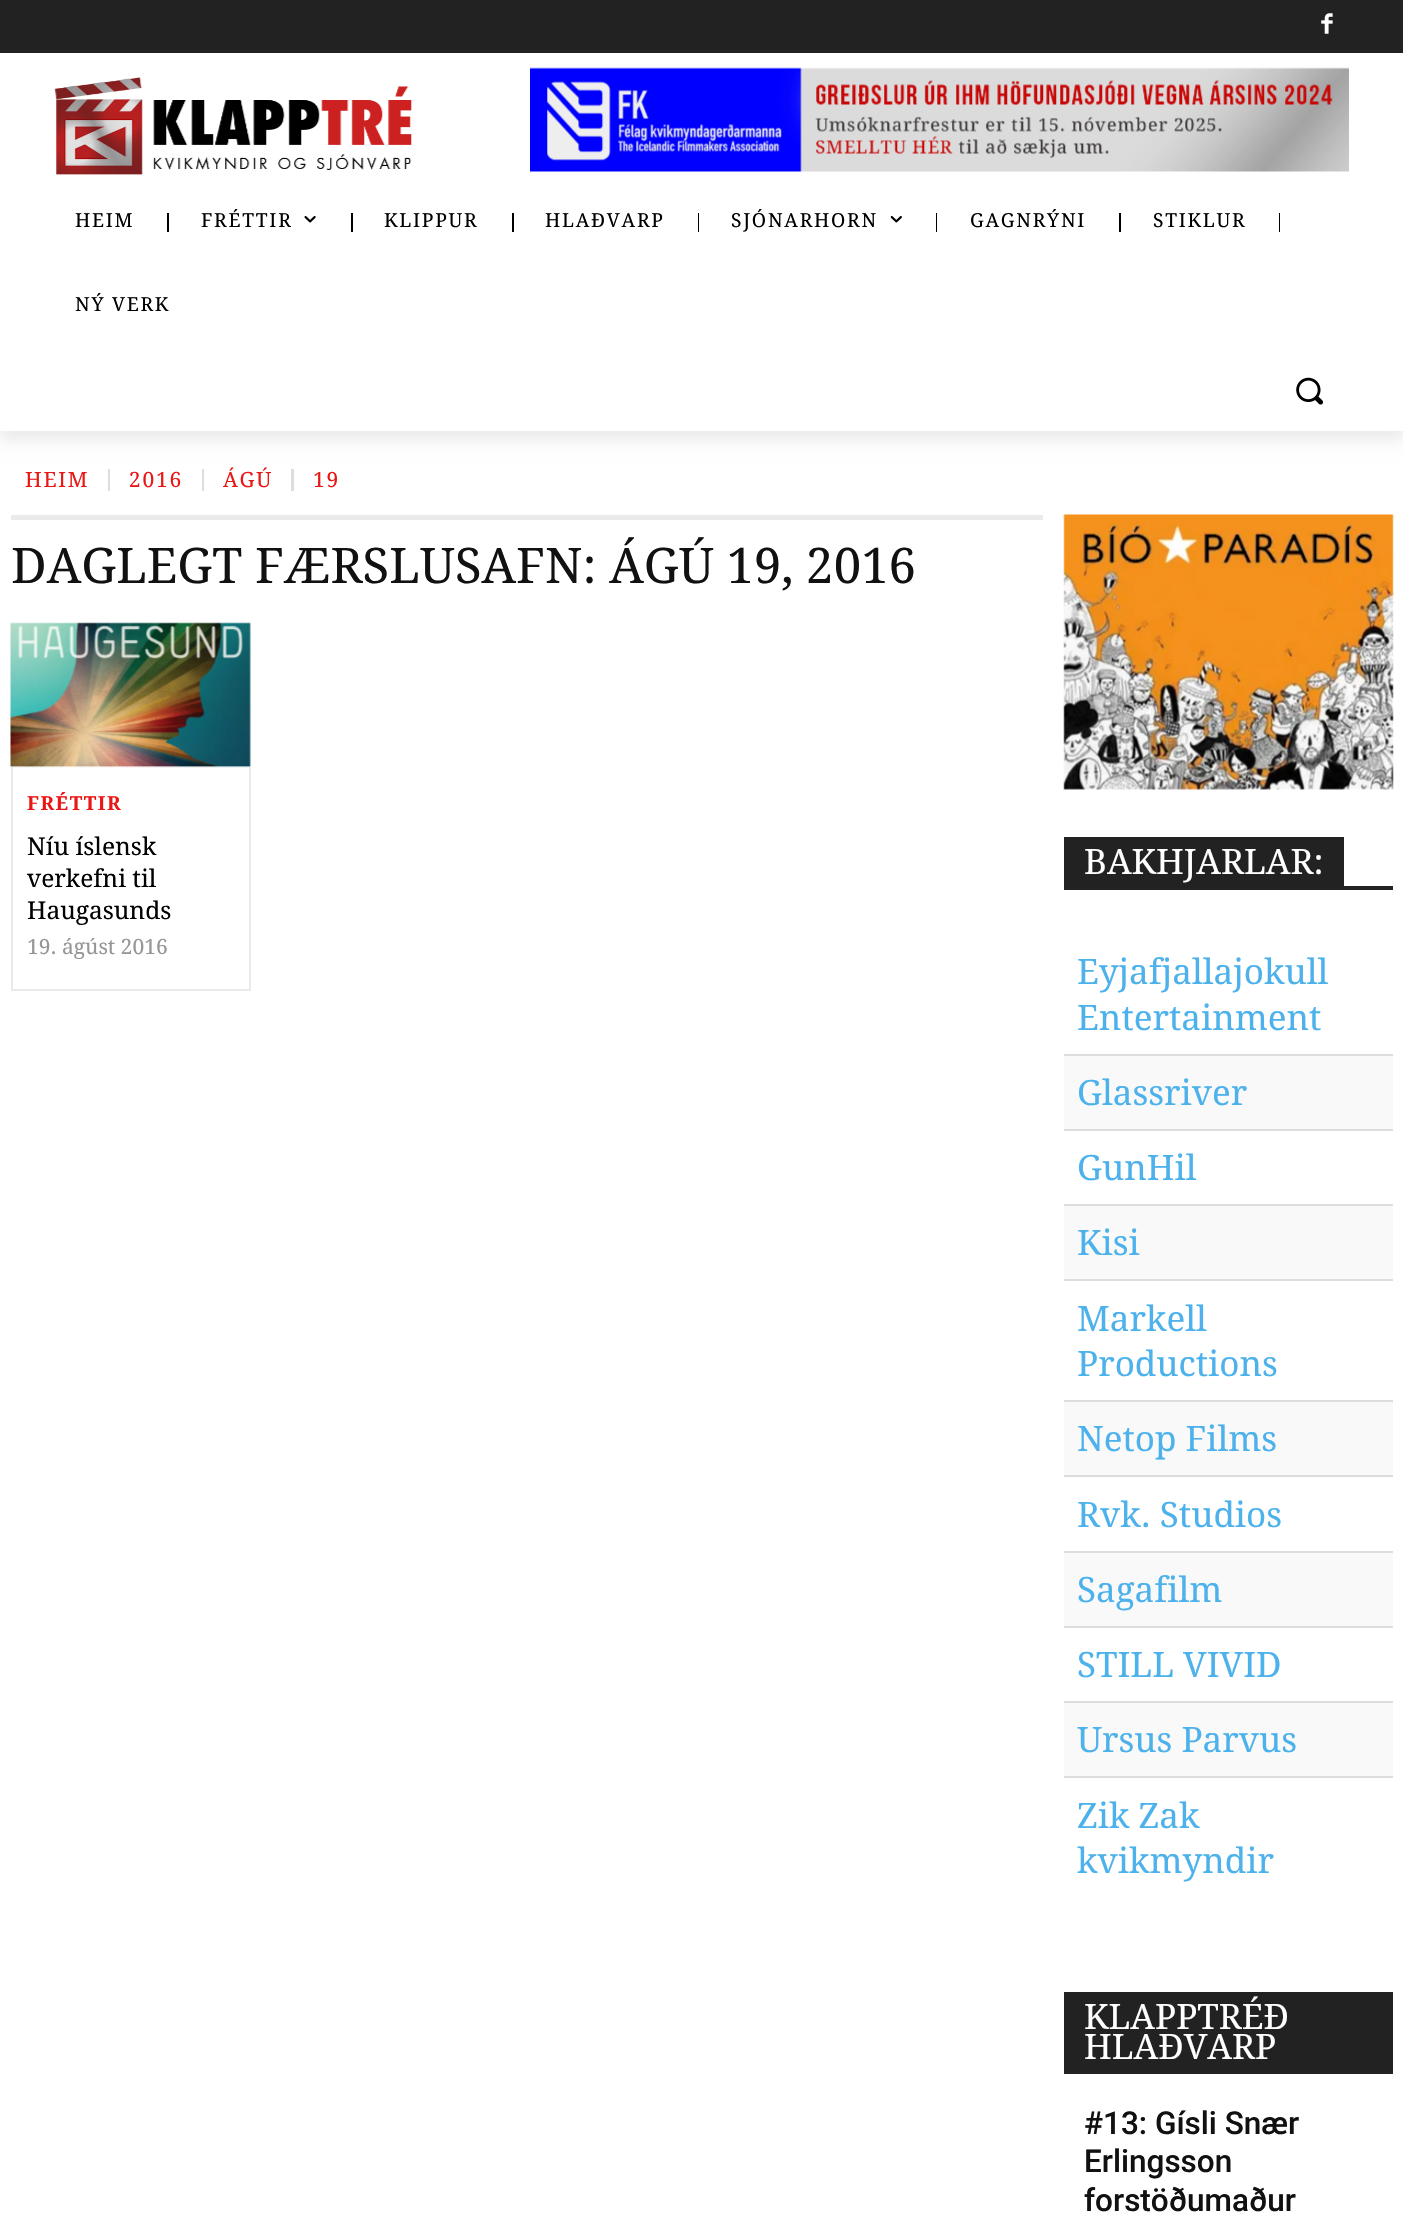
static SkFont makeFont(const char* family, int weight, float size, bool italic = false) {
  SkFontStyle style(weight, SkFontStyle::kNormal_Width,
    italic ? SkFontStyle::kItalic_Slant : SkFontStyle::kUpright_Slant);
  SkFont result(fontMgr->matchFamilyStyle(family, style), size);
  result.setSubpixel(true);
  return result;
}

static void text(SkCanvas* c, const char* s, float x, float y, const SkFont& font, SkColor color) {
  SkPaint ink(SkColor4f::FromColor(color));
  ink.setAntiAlias(true);
  c->drawString(s, x, y, font, ink);
}

static void spacedText(SkCanvas* c, const char* s, float x, float y, const SkFont& font, const SkPaint& ink, float letter, float word) {
  std::vector<SkGlyphID> glyphs(font.countText(s, strlen(s), SkTextEncoding::kUTF8));
  std::vector<float> xs(glyphs.size());
  font.textToGlyphs(s, strlen(s), SkTextEncoding::kUTF8, glyphs);
  font.getXPos(glyphs, xs, x);
  float extra = 0;
  for (size_t i = 0; i < glyphs.size(); i++) {
    xs[i] += extra;
    extra += letter + word * (glyphs[i] == font.unicharToGlyph(' '));
  }
  c->drawTextBlob(SkTextBlob::MakeFromPosHGlyphs(glyphs, xs, y, font), 0, 0, ink);
}

static void box(SkCanvas* c, float l, float t, float r, float b, SkColor color) {
  SkPaint ink(SkColor4f::FromColor(color));
  ink.setAntiAlias(true);
  c->drawRect(SkRect::MakeLTRB(l, t, r, b), ink);
}

static void picture(SkCanvas* c, const char* path, float l, float t, float r, float b) {
  auto image = SkImages::DeferredFromEncodedData(SkData::MakeFromFileName(path));
  c->drawImageRect(image, SkRect::MakeLTRB(l, t, r, b), SkSamplingOptions());
}

void draw(SkCanvas* c) {
  SkPaint paint;
  paint.setAntiAlias(true);
  c->clear(0xffffffff);
  box(c, 0, 0, 1403, 53, 0xff222222);
  picture(c, "img_01.png", 1321, 13, 1333, 34);
  picture(c, "img_02.png", 54, 77, 412, 175);
  picture(c, "img_03.png", 530, 67, 1349, 172);
  c->save();
  c->clipPath(SkPathBuilder(SkPathFillType::kEvenOdd).moveTo(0, 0).lineTo(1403, 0).lineTo(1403, 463).lineTo(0, 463).close().moveTo(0, 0).lineTo(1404, 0).lineTo(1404, 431).lineTo(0, 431).close().detach(), true);
  paint.setColor(0x14000000);
  paint.setMaskFilter(SkMaskFilter::MakeBlur(kNormal_SkBlurStyle, 7));
  c->drawRect(SkRect::MakeLTRB(0, 11, 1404, 441), paint);
  paint.setMaskFilter(nullptr);
  c->restore();
  SkFont face1 = makeFont("Droid Serif", 400, 19.25f);
  paint.setColor(0xff000000);
  spacedText(c, "HEIM", 75, 227, face1, paint, 1.75f, 0);
  box(c, 167, 213, 169, 232, 0xff000000);
  spacedText(c, "FRÉTTIR", 201, 227, face1, paint, 1.75f, 0);
  picture(c, "img_04.png", 304, 215, 316, 223);
  box(c, 351, 213, 353, 232, 0xff000000);
  spacedText(c, "KLIPPUR", 384, 227, face1, paint, 1.75f, 0);
  box(c, 512, 213, 514, 232, 0xff000000);
  spacedText(c, "HLAÐVARP", 545, 227, face1, paint, 1.75f, 0);
  box(c, 698, 213, 699, 232, 0xff000000);
  spacedText(c, "SJÓNARHORN", 731, 227, face1, paint, 1.75f, 0);
  picture(c, "img_05.png", 890, 215, 902, 223);
  box(c, 936, 213, 937, 232, 0xff000000);
  spacedText(c, "GAGNRÝNI", 970, 227, face1, paint, 1.75f, 0);
  box(c, 1119, 213, 1121, 232, 0xff000000);
  spacedText(c, "STIKLUR", 1153, 227, face1, paint, 1.75f, 0);
  box(c, 1279, 213, 1280, 232, 0xff000000);
  spacedText(c, "NÝ VERK", 75, 311, face1, paint, 1.75f, 0);
  picture(c, "img_06.png", 1296, 377, 1324, 405);
  SkFont face2 = makeFont("Droid Serif", 400, 21);
  paint.setColor(0xffea1717);
  spacedText(c, "HEIM", 25, 487, face2, paint, 1.75f, 0);
  box(c, 108, 469, 110, 491, 0xffdddddd);
  spacedText(c, "2016", 129, 487, face2, paint, 1.75f, 0);
  box(c, 202, 469, 204, 491, 0xffdddddd);
  spacedText(c, "ÁGÚ", 223, 487, face2, paint, 1.75f, 0);
  box(c, 291, 469, 294, 491, 0xffdddddd);
  spacedText(c, "19", 313, 487, face2, paint, 1.75f, 0);
  box(c, 11, 515, 1043, 520, 0xffeaeaea);
  SkFont face3 = makeFont("Droid Serif", 400, 49);
  text(c, "DAGLEGT FÆRSLUSAFN: ÁGÚ 19, 2016", 11, 583, face3, 0xff111111);
  picture(c, "img_07.png", 10, 622, 251, 768);
  box(c, 249, 767, 251, 991, 0xffeaeaea);
  box(c, 11, 989, 250, 991, 0xffeaeaea);
  box(c, 11, 767, 13, 991, 0xffeaeaea);
  SkFont face4 = makeFont("Droid Serif", 700, 19.25f);
  spacedText(c, "FRÉTTIR", 27, 810, face4, paint, 1.5f, 0);
  SkFont face5 = makeFont("Droid Serif", 400, 24.5f);
  text(c, "Níu íslensk", 27, 855, face5, 0xff000000);
  text(c, "verkefni til", 27, 887, face5, 0xff000000);
  text(c, "Haugasunds", 27, 919, face5, 0xff000000);
  text(c, "19. ágúst 2016", 27, 954, face2, 0xff969696);
  picture(c, "img_08.png", 1063, 514, 1394, 790);
  box(c, 1064, 886, 1393, 890, 0xff222222);
  box(c, 1064, 837, 1344, 886, 0xff222222);
  SkFont face6 = makeFont("Droid Serif", 400, 35);
  text(c, "BAKHJARLAR:", 1084, 874, face6, 0xffffffff);
  text(c, "Eyjafjallajokull", 1077, 984, face6, 0xff4db2ec);
  text(c, "Entertainment", 1077, 1030, face6, 0xff4db2ec);
  box(c, 1064, 1056, 1393, 1129, 0xfff9f9f9);
  box(c, 1064, 1054, 1393, 1056, 0xffdddddd);
  text(c, "Glassriver", 1077, 1105, face6, 0xff4db2ec);
  box(c, 1064, 1129, 1393, 1131, 0xffdddddd);
  text(c, "GunHil", 1077, 1180, face6, 0xff4db2ec);
  box(c, 1064, 1206, 1393, 1279, 0xfff9f9f9);
  box(c, 1064, 1204, 1393, 1206, 0xffdddddd);
  text(c, "Kisi", 1077, 1255, face6, 0xff4db2ec);
  box(c, 1064, 1279, 1393, 1281, 0xffdddddd);
  text(c, "Markell", 1077, 1331, face6, 0xff4db2ec);
  text(c, "Productions", 1077, 1376, face6, 0xff4db2ec);
  box(c, 1064, 1402, 1393, 1475, 0xfff9f9f9);
  box(c, 1064, 1400, 1393, 1402, 0xffdddddd);
  text(c, "Netop Films", 1077, 1451, face6, 0xff4db2ec);
  box(c, 1064, 1475, 1393, 1477, 0xffdddddd);
  text(c, "Rvk. Studios", 1077, 1527, face6, 0xff4db2ec);
  box(c, 1064, 1553, 1393, 1626, 0xfff9f9f9);
  box(c, 1064, 1551, 1393, 1553, 0xffdddddd);
  text(c, "Sagafilm", 1077, 1602, face6, 0xff4db2ec);
  box(c, 1064, 1626, 1393, 1628, 0xffdddddd);
  text(c, "STILL VIVID", 1077, 1677, face6, 0xff4db2ec);
  box(c, 1064, 1703, 1393, 1776, 0xfff9f9f9);
  box(c, 1064, 1701, 1393, 1703, 0xffdddddd);
  text(c, "Ursus Parvus", 1077, 1752, face6, 0xff4db2ec);
  box(c, 1064, 1776, 1393, 1778, 0xffdddddd);
  text(c, "Zik Zak", 1077, 1828, face6, 0xff4db2ec);
  text(c, "kvikmyndir", 1077, 1873, face6, 0xff4db2ec);
  box(c, 1064, 1992, 1393, 2074, 0xff222222);
  text(c, "KLAPPTRÉÐ", 1084, 2029, face6, 0xffffffff);
  text(c, "HLAÐVARP", 1084, 2059, face6, 0xffffffff);
  SkFont face7 = makeFont("Roboto", 500, 31.5f);
  text(c, "#13: Gísli Snær", 1084, 2134, face7, 0xff111111);
  text(c, "Erlingsson", 1084, 2172, face7, 0xff111111);
  text(c, "forstöðumaður", 1084, 2211, face7, 0xff111111);
}
